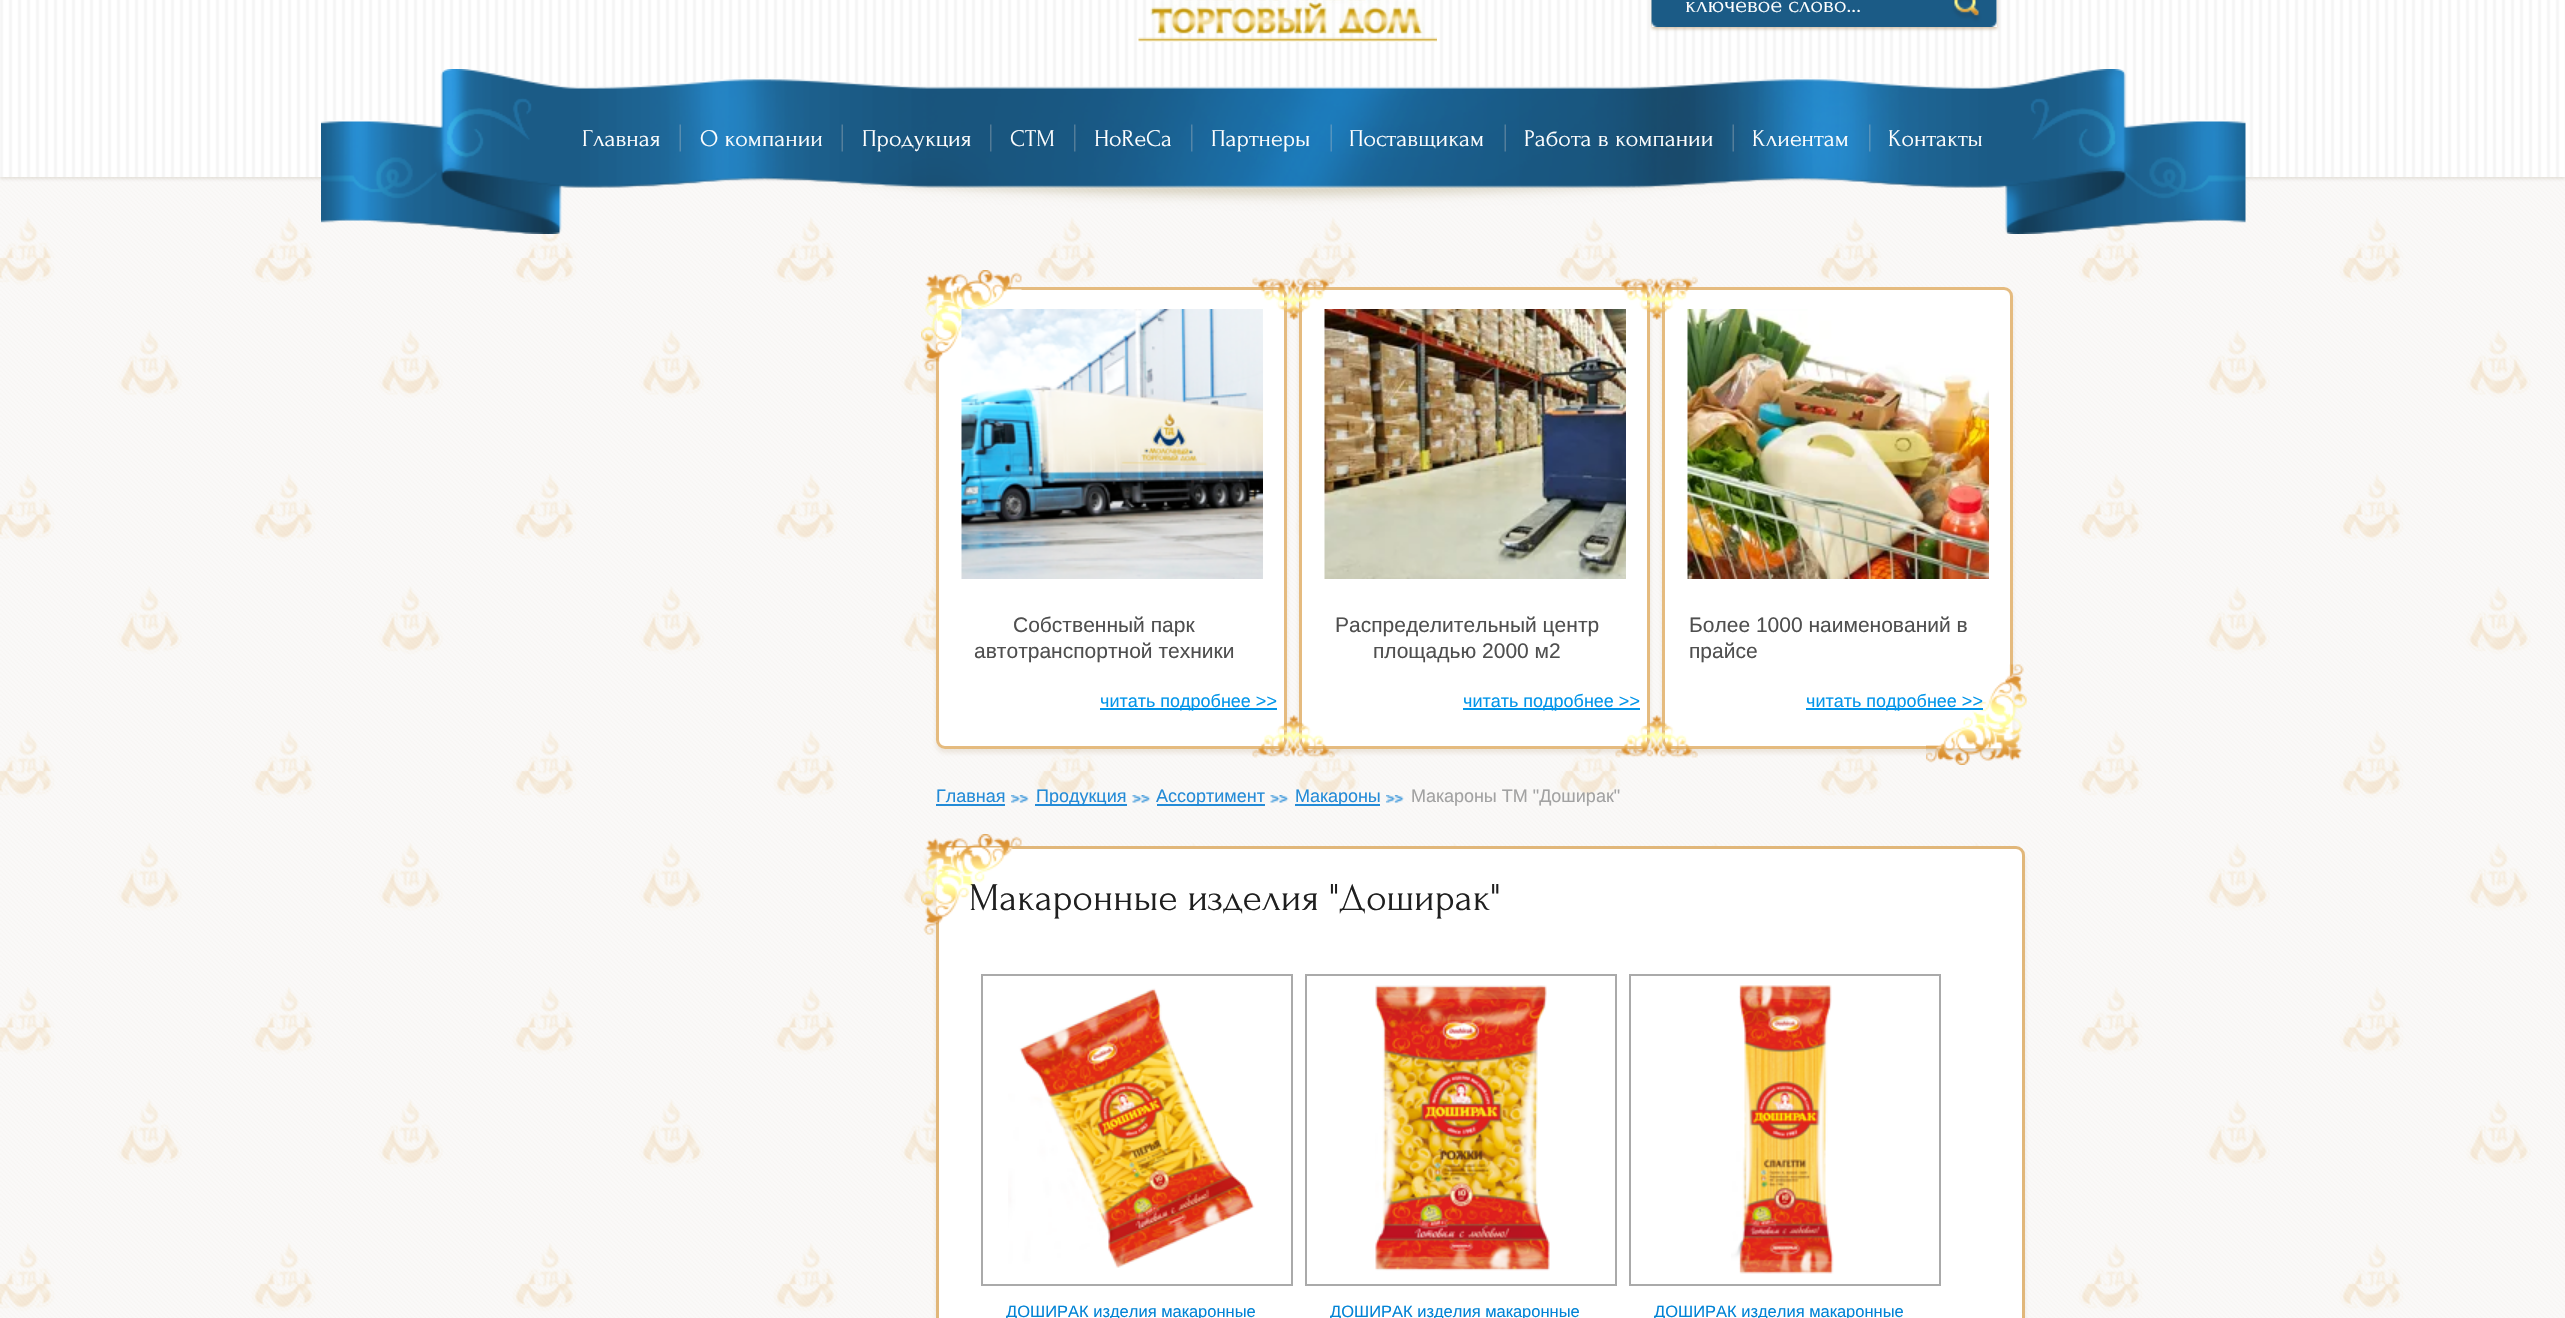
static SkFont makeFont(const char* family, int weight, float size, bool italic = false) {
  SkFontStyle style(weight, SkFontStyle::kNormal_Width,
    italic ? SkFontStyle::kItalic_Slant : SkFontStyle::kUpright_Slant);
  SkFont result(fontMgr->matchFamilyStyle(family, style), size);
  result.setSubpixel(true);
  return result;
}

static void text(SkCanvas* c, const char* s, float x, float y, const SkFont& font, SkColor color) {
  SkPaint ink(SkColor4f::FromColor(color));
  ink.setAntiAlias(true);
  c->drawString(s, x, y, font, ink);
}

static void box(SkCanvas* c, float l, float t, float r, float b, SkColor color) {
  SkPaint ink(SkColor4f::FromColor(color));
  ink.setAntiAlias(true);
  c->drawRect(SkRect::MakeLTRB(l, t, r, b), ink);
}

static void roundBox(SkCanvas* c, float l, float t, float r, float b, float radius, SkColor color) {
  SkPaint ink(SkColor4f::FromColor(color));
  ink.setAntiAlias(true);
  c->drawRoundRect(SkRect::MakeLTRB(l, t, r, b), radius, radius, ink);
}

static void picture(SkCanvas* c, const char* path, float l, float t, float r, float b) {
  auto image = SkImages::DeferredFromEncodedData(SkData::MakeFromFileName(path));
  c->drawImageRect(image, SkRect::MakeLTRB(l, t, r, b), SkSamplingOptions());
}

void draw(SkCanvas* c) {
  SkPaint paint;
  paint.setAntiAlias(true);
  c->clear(0xffffffff);
  picture(c, "img_01.png", 0, 177, 2565, 1318);
  paint.setColor(0x3da0937f);
  paint.setMaskFilter(SkMaskFilter::MakeBlur(kNormal_SkBlurStyle, 1.5f));
  c->drawRect(SkRect::MakeLTRB(0, -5, 2565, 179), paint);
  paint.setMaskFilter(nullptr);
  picture(c, "img_02.png", 0, 0, 2565, 177);
  picture(c, "img_03.png", 1138, 0, 1437, 42);
  c->save();
  c->clipPath(SkPathBuilder(SkPathFillType::kEvenOdd).moveTo(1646, 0).lineTo(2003, 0).lineTo(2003, 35).lineTo(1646, 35).close().moveTo(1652, -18).lineTo(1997, -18).lineTo(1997, 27).lineTo(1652, 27).close().detach(), true);
  paint.setColor(0xa1bba27d);
  paint.setMaskFilter(SkMaskFilter::MakeBlur(kNormal_SkBlurStyle, 1.5f));
  c->drawRect(SkRect::MakeLTRB(1652, -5, 1997, 29), paint);
  paint.setMaskFilter(nullptr);
  c->restore();
  picture(c, "img_04.png", 1651, 0, 1997, 27);
  SkFont face1 = makeFont("Forum", 400, 24);
  text(c, "ключевое слово...", 1685, 12, face1, 0xffffffff);
  picture(c, "img_05.png", 321, 69, 2246, 234);
  text(c, "Главная", 582, 146, face1, 0xffffffff);
  picture(c, "img_06.png", 679, 124, 681, 152);
  text(c, "О компании", 700, 146, face1, 0xffffffff);
  picture(c, "img_07.png", 841, 124, 843, 152);
  text(c, "Продукция", 862, 146, face1, 0xffffffff);
  picture(c, "img_08.png", 990, 124, 992, 152);
  text(c, "СТМ", 1010, 146, face1, 0xffffffff);
  picture(c, "img_09.png", 1074, 124, 1076, 152);
  text(c, "HoReCa", 1094, 146, face1, 0xffffffff);
  picture(c, "img_10.png", 1191, 124, 1193, 152);
  text(c, "Партнеры", 1211, 146, face1, 0xffffffff);
  picture(c, "img_11.png", 1330, 124, 1332, 152);
  text(c, "Поставщикам", 1349, 146, face1, 0xffffffff);
  picture(c, "img_12.png", 1504, 124, 1506, 152);
  text(c, "Работа в компании", 1524, 146, face1, 0xffffffff);
  picture(c, "img_13.png", 1732, 124, 1734, 152);
  text(c, "Клиентам", 1752, 146, face1, 0xffffffff);
  picture(c, "img_14.png", 1869, 124, 1871, 152);
  text(c, "Контакты", 1888, 146, face1, 0xffffffff);
  paint.setColor(0x36bba27d);
  paint.setMaskFilter(SkMaskFilter::MakeBlur(kNormal_SkBlurStyle, 2));
  c->drawRoundRect(SkRect::MakeLTRB(936, 291, 1287, 753), 9, 9, paint);
  paint.setMaskFilter(nullptr);
  roundBox(c, 936, 287, 1287, 749, 9, 0xffffffff);
  paint.setStyle(SkPaint::kStroke_Style);
  paint.setStrokeWidth(3);
  paint.setColor(0x96d28b25);
  c->drawRoundRect(SkRect::MakeLTRB(937.5f, 288.5f, 1285.5f, 747.5f), 7.5f, 7.5f, paint);
  picture(c, "img_15.png", 921, 270, 1022, 371);
  paint.setStyle(SkPaint::kFill_Style);
  paint.setColor(0x36bba27d);
  paint.setMaskFilter(SkMaskFilter::MakeBlur(kNormal_SkBlurStyle, 2));
  c->drawRoundRect(SkRect::MakeLTRB(1299, 291, 1650, 753), 9, 9, paint);
  paint.setMaskFilter(nullptr);
  roundBox(c, 1299, 287, 1650, 749, 9, 0xffffffff);
  paint.setStyle(SkPaint::kStroke_Style);
  paint.setColor(0x96d28b25);
  c->drawRoundRect(SkRect::MakeLTRB(1300.5f, 288.5f, 1648.5f, 747.5f), 7.5f, 7.5f, paint);
  picture(c, "img_17.png", 1252, 276, 1335, 320);
  picture(c, "img_16.png", 961, 309, 1263, 579);
  SkFont face2 = makeFont("Liberation Sans", 400, 21);
  text(c, "Собственный парк", 1013, 632, face2, 0xff4f4f4f);
  text(c, "автотранспортной техники", 974, 658, face2, 0xff4f4f4f);
  box(c, 1100, 708, 1277, 710, 0xff0295e9);
  SkFont face3 = makeFont("Liberation Sans", 400, 18);
  text(c, "читать подробнее >>", 1100, 707, face3, 0xff0295e9);
  paint.setStyle(SkPaint::kFill_Style);
  paint.setColor(0x36bba27d);
  paint.setMaskFilter(SkMaskFilter::MakeBlur(kNormal_SkBlurStyle, 2));
  c->drawRoundRect(SkRect::MakeLTRB(1662, 291, 2013, 753), 9, 9, paint);
  paint.setMaskFilter(nullptr);
  roundBox(c, 1662, 287, 2013, 749, 9, 0xffffffff);
  paint.setStyle(SkPaint::kStroke_Style);
  paint.setColor(0x96d28b25);
  c->drawRoundRect(SkRect::MakeLTRB(1663.5f, 288.5f, 2011.5f, 747.5f), 7.5f, 7.5f, paint);
  picture(c, "img_20.png", 1615, 276, 1698, 320);
  picture(c, "img_18.png", 1324, 309, 1626, 579);
  text(c, "Распределительный центр", 1335, 632, face2, 0xff4f4f4f);
  text(c, "площадью 2000 м2", 1373, 658, face2, 0xff4f4f4f);
  box(c, 1463, 708, 1640, 710, 0xff0295e9);
  text(c, "читать подробнее >>", 1463, 707, face3, 0xff0295e9);
  picture(c, "img_19.png", 1252, 714, 1335, 758);
  picture(c, "img_21.png", 1687, 309, 1989, 579);
  text(c, "Более 1000 наименований в", 1689, 632, face2, 0xff4f4f4f);
  text(c, "прайсе", 1689, 658, face2, 0xff4f4f4f);
  picture(c, "img_23.png", 1926, 664, 2027, 765);
  box(c, 1806, 708, 1983, 710, 0xff0295e9);
  text(c, "читать подробнее >>", 1806, 707, face3, 0xff0295e9);
  picture(c, "img_22.png", 1615, 714, 1698, 758);
  text(c, "Главная", 936, 802, face3, 0xff248bd7);
  box(c, 936, 804, 1005, 806, 0xff248bd7);
  picture(c, "img_24.png", 1011, 795, 1029, 803);
  box(c, 1035, 804, 1127, 806, 0xff248bd7);
  text(c, "Продукция", 1036, 802, face3, 0xff248bd7);
  picture(c, "img_25.png", 1132, 795, 1151, 803);
  box(c, 1157, 804, 1265, 806, 0xff248bd7);
  text(c, "Ассортимент", 1156, 802, face3, 0xff248bd7);
  picture(c, "img_26.png", 1270, 795, 1289, 803);
  box(c, 1295, 804, 1380, 806, 0xff248bd7);
  text(c, "Макароны", 1295, 802, face3, 0xff248bd7);
  picture(c, "img_27.png", 1386, 795, 1404, 803);
  text(c, "Макароны ТМ \"Доширак\"", 1411, 802, face3, 0xffa2a2a2);
  paint.setStyle(SkPaint::kFill_Style);
  paint.setColor(0x36bba27d);
  paint.setMaskFilter(SkMaskFilter::MakeBlur(kNormal_SkBlurStyle, 2));
  c->drawRoundRect(SkRect::MakeLTRB(936, 851, 2025, 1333), 9, 9, paint);
  paint.setMaskFilter(nullptr);
  paint.setColor(0xffffffff);
  c->drawRoundRect(SkRect::MakeLTRB(937.5f, 847.5f, 2023.5f, 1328.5f), 7.5f, 7.5f, paint);
  paint.setStyle(SkPaint::kStroke_Style);
  paint.setColor(0xffe1b77a);
  c->drawRoundRect(SkRect::MakeLTRB(937.5f, 847.5f, 2023.5f, 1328.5f), 7.5f, 7.5f, paint);
  picture(c, "img_28.png", 921, 834, 1022, 935);
  SkFont face4 = makeFont("Forum", 400, 39);
  text(c, "Макаронные изделия \"Доширак\"", 969, 910, face4, 0xff1f1f1f);
  paint.setStrokeWidth(2);
  paint.setColor(0xffaaaaaa);
  c->drawRect(SkRect::MakeLTRB(982, 975, 1292, 1285), paint);
  picture(c, "img_29.png", 1008, 988, 1255, 1268);
  SkFont face5 = makeFont("Liberation Sans", 400, 16.5f);
  text(c, "ДОШИРАК изделия макаронные", 1006, 1317, face5, 0xff0283d5);
  c->drawRect(SkRect::MakeLTRB(1306, 975, 1616, 1285), paint);
  picture(c, "img_30.png", 1375, 985, 1550, 1271);
  text(c, "ДОШИРАК изделия макаронные", 1330, 1317, face5, 0xff0283d5);
  c->drawRect(SkRect::MakeLTRB(1630, 975, 1940, 1285), paint);
  picture(c, "img_31.png", 1731, 985, 1834, 1274);
  text(c, "ДОШИРАК изделия макаронные", 1654, 1317, face5, 0xff0283d5);
}
